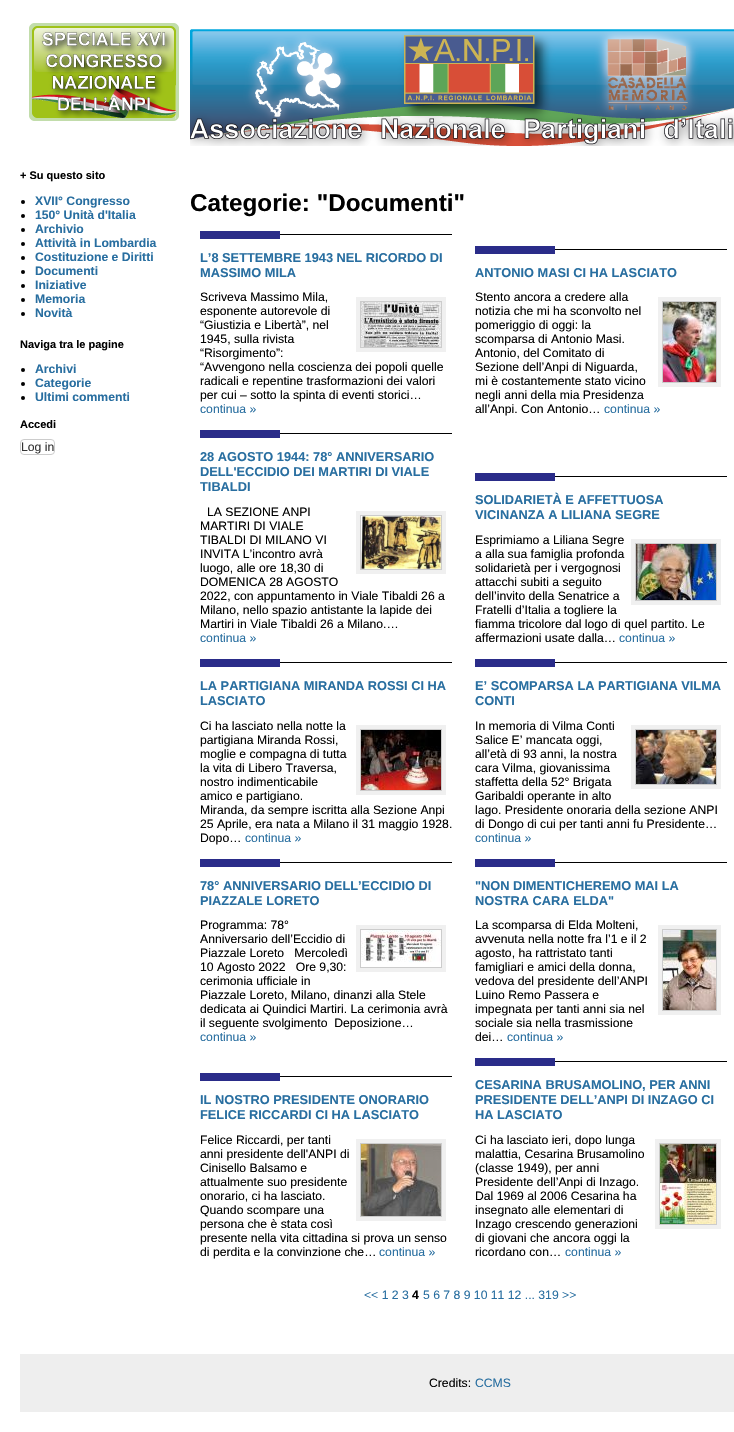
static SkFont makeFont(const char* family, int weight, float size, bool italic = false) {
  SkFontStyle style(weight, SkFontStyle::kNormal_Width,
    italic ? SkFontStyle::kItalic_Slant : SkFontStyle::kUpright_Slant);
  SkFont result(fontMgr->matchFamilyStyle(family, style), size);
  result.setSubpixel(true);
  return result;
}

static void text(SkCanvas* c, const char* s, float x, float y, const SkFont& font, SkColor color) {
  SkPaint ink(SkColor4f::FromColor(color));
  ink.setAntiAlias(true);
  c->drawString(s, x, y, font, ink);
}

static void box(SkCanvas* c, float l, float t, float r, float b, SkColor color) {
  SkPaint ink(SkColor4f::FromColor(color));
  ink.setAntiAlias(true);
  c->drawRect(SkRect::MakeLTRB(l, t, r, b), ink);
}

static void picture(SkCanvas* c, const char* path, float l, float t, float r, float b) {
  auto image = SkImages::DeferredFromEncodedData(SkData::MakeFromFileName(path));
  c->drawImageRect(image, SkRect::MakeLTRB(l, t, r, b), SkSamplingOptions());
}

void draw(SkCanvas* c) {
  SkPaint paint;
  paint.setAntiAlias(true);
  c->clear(0xffffffff);
  picture(c, "img_01.png", 29, 23, 179, 121);
  picture(c, "img_02.png", 190, 29, 734, 146);
  SkFont face1 = makeFont("Liberation Sans", 700, 11);
  text(c, "+ Su questo sito", 20, 179, face1, 0xff000000);
  paint.setColor(0xff000000);
  c->drawCircle(23, 202, 2, paint);
  SkFont face2 = makeFont("Liberation Sans", 700, 12.2f);
  text(c, "XVII° Congresso", 35, 205, face2, 0xff286ea0);
  c->drawCircle(23, 216, 2, paint);
  text(c, "150° Unità d'Italia", 35, 219, face2, 0xff286ea0);
  c->drawCircle(23, 230, 2, paint);
  text(c, "Archivio", 35, 233, face2, 0xff286ea0);
  c->drawCircle(23, 244, 2, paint);
  text(c, "Attività in Lombardia", 35, 247, face2, 0xff286ea0);
  c->drawCircle(23, 258, 2, paint);
  text(c, "Costituzione e Diritti", 35, 261, face2, 0xff286ea0);
  c->drawCircle(23, 272, 2, paint);
  text(c, "Documenti", 35, 275, face2, 0xff286ea0);
  c->drawCircle(23, 286, 2, paint);
  text(c, "Iniziative", 35, 289, face2, 0xff286ea0);
  c->drawCircle(23, 300, 2, paint);
  text(c, "Memoria", 35, 303, face2, 0xff286ea0);
  c->drawCircle(23, 314, 2, paint);
  text(c, "Novità", 35, 317, face2, 0xff286ea0);
  text(c, "Naviga tra le pagine", 20, 348, face1, 0xff000000);
  c->drawCircle(23, 370, 2, paint);
  text(c, "Archivi", 35, 373, face2, 0xff286ea0);
  c->drawCircle(23, 384, 2, paint);
  text(c, "Categorie", 35, 387, face2, 0xff286ea0);
  c->drawCircle(23, 398, 2, paint);
  text(c, "Ultimi commenti", 35, 401, face2, 0xff286ea0);
  text(c, "Accedi", 20, 428, face1, 0xff000000);
  paint.setStyle(SkPaint::kStroke_Style);
  paint.setStrokeWidth(1);
  paint.setColor(0xffcccccc);
  c->drawRoundRect(SkRect::MakeLTRB(20.5f, 439.5f, 54.5f, 454.5f), 3.5f, 3.5f, paint);
  SkFont face3 = makeFont("Liberation Sans", 400, 12.2f);
  text(c, "Log in", 21, 451, face3, 0xff333333);
  SkFont face4 = makeFont("Liberation Sans", 700, 24.25f);
  text(c, "Categorie: \"Documenti\"", 190, 211, face4, 0xff000000);
  box(c, 280, 234, 452, 235, 0xff000000);
  box(c, 200, 231, 280, 239, 0xff2a2c89);
  SkFont face5 = makeFont("Liberation Sans", 700, 12.8f);
  text(c, "L’8 SETTEMBRE 1943 NEL RICORDO DI", 200, 262, face5, 0xff286ea0);
  text(c, "MASSIMO MILA", 200, 277, face5, 0xff286ea0);
  text(c, "Scriveva Massimo Mila,", 200, 301, face3, 0xff000000);
  paint.setStyle(SkPaint::kFill_Style);
  c->drawRect(SkRect::MakeLTRB(358, 299, 444, 350), paint);
  paint.setStyle(SkPaint::kStroke_Style);
  paint.setStrokeWidth(4);
  paint.setColor(0xfff0f0f0);
  c->drawRect(SkRect::MakeLTRB(358, 299, 444, 350), paint);
  picture(c, "img_03.png", 361, 302, 441, 347);
  text(c, "esponente autorevole di", 200, 315, face3, 0xff000000);
  text(c, "“Giustizia e Libertà”, nel", 200, 329, face3, 0xff000000);
  text(c, "1945, sulla rivista", 200, 343, face3, 0xff000000);
  text(c, "“Risorgimento”:", 200, 357, face3, 0xff000000);
  text(c, "“Avvengono nella coscienza dei popoli quelle", 200, 371, face3, 0xff000000);
  text(c, "radicali e repentine trasformazioni dei valori", 200, 385, face3, 0xff000000);
  text(c, "per cui – sotto la spinta di eventi storici…", 200, 399, face3, 0xff000000);
  text(c, "continua »", 200, 413, face3, 0xff286ea0);
  box(c, 555, 249, 727, 250, 0xff000000);
  box(c, 475, 246, 555, 254, 0xff2a2c89);
  text(c, "ANTONIO MASI CI HA LASCIATO", 475, 277, face5, 0xff286ea0);
  text(c, "Stento ancora a credere alla", 475, 301, face3, 0xff000000);
  paint.setStyle(SkPaint::kFill_Style);
  paint.setColor(0xffcccccc);
  c->drawRect(SkRect::MakeLTRB(660, 299, 719, 385), paint);
  paint.setStyle(SkPaint::kStroke_Style);
  paint.setColor(0xfff0f0f0);
  c->drawRect(SkRect::MakeLTRB(660, 299, 719, 385), paint);
  picture(c, "img_04.png", 663, 302, 716, 382);
  text(c, "notizia che mi ha sconvolto nel", 475, 315, face3, 0xff000000);
  text(c, "pomeriggio di oggi: la", 475, 329, face3, 0xff000000);
  text(c, "scomparsa di Antonio Masi.", 475, 343, face3, 0xff000000);
  text(c, "Antonio, del Comitato di", 475, 357, face3, 0xff000000);
  text(c, "Sezione dell’Anpi di Niguarda,", 475, 371, face3, 0xff000000);
  text(c, "mi è costantemente stato vicino", 475, 385, face3, 0xff000000);
  text(c, "negli anni della mia Presidenza", 475, 399, face3, 0xff000000);
  text(c, "all’Anpi. Con Antonio…", 475, 413, face3, 0xff000000);
  text(c, "continua »", 604, 413, face3, 0xff286ea0);
  box(c, 280, 433, 452, 434, 0xff000000);
  box(c, 200, 430, 280, 438, 0xff2a2c89);
  text(c, "28 AGOSTO 1944: 78° ANNIVERSARIO", 200, 461, face5, 0xff286ea0);
  text(c, "DELL'ECCIDIO DEI MARTIRI DI VIALE", 200, 476, face5, 0xff286ea0);
  text(c, "TIBALDI", 200, 491, face5, 0xff286ea0);
  text(c, "LA SEZIONE ANPI", 207, 516, face3, 0xff000000);
  paint.setStyle(SkPaint::kFill_Style);
  paint.setColor(0xffcccccc);
  c->drawRect(SkRect::MakeLTRB(358, 513, 444, 572), paint);
  paint.setStyle(SkPaint::kStroke_Style);
  paint.setColor(0xfff0f0f0);
  c->drawRect(SkRect::MakeLTRB(358, 513, 444, 572), paint);
  picture(c, "img_05.png", 361, 516, 441, 569);
  text(c, "MARTIRI DI VIALE", 200, 530, face3, 0xff000000);
  text(c, "TIBALDI DI MILANO VI", 200, 544, face3, 0xff000000);
  text(c, "INVITA L’incontro avrà", 200, 558, face3, 0xff000000);
  text(c, "luogo, alle ore 18,30 di", 200, 572, face3, 0xff000000);
  text(c, "DOMENICA 28 AGOSTO", 200, 586, face3, 0xff000000);
  text(c, "2022, con appuntamento in Viale Tibaldi 26 a", 200, 600, face3, 0xff000000);
  text(c, "Milano, nello spazio antistante la lapide dei", 200, 614, face3, 0xff000000);
  text(c, "Martiri in Viale Tibaldi 26 a Milano.…", 200, 628, face3, 0xff000000);
  text(c, "continua »", 200, 642, face3, 0xff286ea0);
  box(c, 555, 476, 727, 477, 0xff000000);
  box(c, 475, 473, 555, 481, 0xff2a2c89);
  text(c, "SOLIDARIETÀ E AFFETTUOSA", 475, 504, face5, 0xff286ea0);
  text(c, "VICINANZA A LILIANA SEGRE", 475, 519, face5, 0xff286ea0);
  text(c, "Esprimiamo a Liliana Segre", 475, 544, face3, 0xff000000);
  paint.setStyle(SkPaint::kFill_Style);
  paint.setColor(0xffcccccc);
  c->drawRect(SkRect::MakeLTRB(633, 541, 719, 603), paint);
  paint.setStyle(SkPaint::kStroke_Style);
  paint.setColor(0xfff0f0f0);
  c->drawRect(SkRect::MakeLTRB(633, 541, 719, 603), paint);
  picture(c, "img_06.png", 636, 544, 716, 600);
  text(c, "a alla sua famiglia profonda", 475, 558, face3, 0xff000000);
  text(c, "solidarietà per i vergognosi", 475, 572, face3, 0xff000000);
  text(c, "attacchi subiti a seguito", 475, 586, face3, 0xff000000);
  text(c, "dell’invito della Senatrice a", 475, 600, face3, 0xff000000);
  text(c, "Fratelli d’Italia a togliere la", 475, 614, face3, 0xff000000);
  text(c, "fiamma tricolore dal logo di quel partito. Le", 475, 628, face3, 0xff000000);
  text(c, "affermazioni usate dalla…", 475, 642, face3, 0xff000000);
  text(c, "continua »", 619, 642, face3, 0xff286ea0);
  box(c, 280, 662, 452, 663, 0xff000000);
  box(c, 200, 659, 280, 667, 0xff2a2c89);
  text(c, "LA PARTIGIANA MIRANDA ROSSI CI HA", 200, 690, face5, 0xff286ea0);
  text(c, "LASCIATO", 200, 705, face5, 0xff286ea0);
  text(c, "Ci ha lasciato nella notte la", 200, 730, face3, 0xff000000);
  paint.setStyle(SkPaint::kFill_Style);
  paint.setColor(0xffcccccc);
  c->drawRect(SkRect::MakeLTRB(358, 727, 444, 793), paint);
  paint.setStyle(SkPaint::kStroke_Style);
  paint.setColor(0xfff0f0f0);
  c->drawRect(SkRect::MakeLTRB(358, 727, 444, 793), paint);
  picture(c, "img_07.png", 361, 730, 441, 790);
  text(c, "partigiana Miranda Rossi,", 200, 744, face3, 0xff000000);
  text(c, "moglie e compagna di tutta", 200, 758, face3, 0xff000000);
  text(c, "la vita di Libero Traversa,", 200, 772, face3, 0xff000000);
  text(c, "nostro indimenticabile", 200, 786, face3, 0xff000000);
  text(c, "amico e partigiano.", 200, 800, face3, 0xff000000);
  text(c, "Miranda, da sempre iscritta alla Sezione Anpi", 200, 814, face3, 0xff000000);
  text(c, "25 Aprile, era nata a Milano il 31 maggio 1928.", 200, 828, face3, 0xff000000);
  text(c, "Dopo…", 200, 842, face3, 0xff000000);
  text(c, "continua »", 245, 842, face3, 0xff286ea0);
  box(c, 555, 662, 727, 663, 0xff000000);
  box(c, 475, 659, 555, 667, 0xff2a2c89);
  text(c, "E’ SCOMPARSA LA PARTIGIANA VILMA", 475, 690, face5, 0xff286ea0);
  text(c, "CONTI", 475, 705, face5, 0xff286ea0);
  text(c, "In memoria di Vilma Conti", 475, 730, face3, 0xff000000);
  paint.setStyle(SkPaint::kFill_Style);
  paint.setColor(0xffcccccc);
  c->drawRect(SkRect::MakeLTRB(633, 727, 719, 787), paint);
  paint.setStyle(SkPaint::kStroke_Style);
  paint.setColor(0xfff0f0f0);
  c->drawRect(SkRect::MakeLTRB(633, 727, 719, 787), paint);
  picture(c, "img_08.png", 636, 730, 716, 784);
  text(c, "Salice E’ mancata oggi,", 475, 744, face3, 0xff000000);
  text(c, "all’età di 93 anni, la nostra", 475, 758, face3, 0xff000000);
  text(c, "cara Vilma, giovanissima", 475, 772, face3, 0xff000000);
  text(c, "staffetta della 52° Brigata", 475, 786, face3, 0xff000000);
  text(c, "Garibaldi operante in alto", 475, 800, face3, 0xff000000);
  text(c, "lago. Presidente onoraria della sezione ANPI", 475, 814, face3, 0xff000000);
  text(c, "di Dongo di cui per tanti anni fu Presidente…", 475, 828, face3, 0xff000000);
  text(c, "continua »", 475, 842, face3, 0xff286ea0);
  box(c, 280, 862, 452, 863, 0xff000000);
  box(c, 200, 859, 280, 867, 0xff2a2c89);
  text(c, "78° ANNIVERSARIO DELL’ECCIDIO DI", 200, 890, face5, 0xff286ea0);
  text(c, "PIAZZALE LORETO", 200, 905, face5, 0xff286ea0);
  text(c, "Programma: 78°", 200, 929, face3, 0xff000000);
  paint.setStyle(SkPaint::kFill_Style);
  paint.setColor(0xffcccccc);
  c->drawRect(SkRect::MakeLTRB(358, 927, 444, 970), paint);
  paint.setStyle(SkPaint::kStroke_Style);
  paint.setColor(0xfff0f0f0);
  c->drawRect(SkRect::MakeLTRB(358, 927, 444, 970), paint);
  picture(c, "img_09.png", 361, 930, 441, 967);
  text(c, "Anniversario dell’Eccidio di", 200, 943, face3, 0xff000000);
  text(c, "Piazzale Loreto   Mercoledì", 200, 957, face3, 0xff000000);
  text(c, "10 Agosto 2022   Ore 9,30:", 200, 971, face3, 0xff000000);
  text(c, "cerimonia ufficiale in", 200, 985, face3, 0xff000000);
  text(c, "Piazzale Loreto, Milano, dinanzi alla Stele", 200, 999, face3, 0xff000000);
  text(c, "dedicata ai Quindici Martiri. La cerimonia avrà", 200, 1013, face3, 0xff000000);
  text(c, "il seguente svolgimento  Deposizione…", 200, 1027, face3, 0xff000000);
  text(c, "continua »", 200, 1041, face3, 0xff286ea0);
  box(c, 555, 862, 727, 863, 0xff000000);
  box(c, 475, 859, 555, 867, 0xff2a2c89);
  text(c, "\"NON DIMENTICHEREMO MAI LA", 475, 890, face5, 0xff286ea0);
  text(c, "NOSTRA CARA ELDA\"", 475, 905, face5, 0xff286ea0);
  text(c, "La scomparsa di Elda Molteni,", 475, 929, face3, 0xff000000);
  paint.setStyle(SkPaint::kFill_Style);
  paint.setColor(0xffcccccc);
  c->drawRect(SkRect::MakeLTRB(660, 927, 719, 1013), paint);
  paint.setStyle(SkPaint::kStroke_Style);
  paint.setColor(0xfff0f0f0);
  c->drawRect(SkRect::MakeLTRB(660, 927, 719, 1013), paint);
  picture(c, "img_10.png", 663, 930, 716, 1010);
  text(c, "avvenuta nella notte fra l’1 e il 2", 475, 943, face3, 0xff000000);
  text(c, "agosto, ha rattristato tanti", 475, 957, face3, 0xff000000);
  text(c, "famigliari e amici della donna,", 475, 971, face3, 0xff000000);
  text(c, "vedova del presidente dell’ANPI", 475, 985, face3, 0xff000000);
  text(c, "Luino Remo Passera e", 475, 999, face3, 0xff000000);
  text(c, "impegnata per tanti anni sia nel", 475, 1013, face3, 0xff000000);
  text(c, "sociale sia nella trasmissione", 475, 1027, face3, 0xff000000);
  text(c, "dei…", 475, 1041, face3, 0xff000000);
  text(c, "continua »", 507, 1041, face3, 0xff286ea0);
  box(c, 280, 1076, 452, 1077, 0xff000000);
  box(c, 200, 1073, 280, 1081, 0xff2a2c89);
  text(c, "IL NOSTRO PRESIDENTE ONORARIO", 200, 1104, face5, 0xff286ea0);
  text(c, "FELICE RICCARDI CI HA LASCIATO", 200, 1119, face5, 0xff286ea0);
  text(c, "Felice Riccardi, per tanti", 200, 1144, face3, 0xff000000);
  paint.setStyle(SkPaint::kFill_Style);
  paint.setColor(0xffcccccc);
  c->drawRect(SkRect::MakeLTRB(358, 1141, 444, 1219), paint);
  paint.setStyle(SkPaint::kStroke_Style);
  paint.setColor(0xfff0f0f0);
  c->drawRect(SkRect::MakeLTRB(358, 1141, 444, 1219), paint);
  picture(c, "img_11.png", 361, 1144, 441, 1216);
  text(c, "anni presidente dell'ANPI di", 200, 1158, face3, 0xff000000);
  text(c, "Cinisello Balsamo e", 200, 1172, face3, 0xff000000);
  text(c, "attualmente suo presidente", 200, 1186, face3, 0xff000000);
  text(c, "onorario, ci ha lasciato.", 200, 1200, face3, 0xff000000);
  text(c, "Quando scompare una", 200, 1214, face3, 0xff000000);
  text(c, "persona che è stata così", 200, 1228, face3, 0xff000000);
  text(c, "presente nella vita cittadina si prova un senso", 200, 1242, face3, 0xff000000);
  text(c, "di perdita e la convinzione che…", 200, 1256, face3, 0xff000000);
  text(c, "continua »", 379, 1256, face3, 0xff286ea0);
  box(c, 555, 1061, 727, 1062, 0xff000000);
  box(c, 475, 1058, 555, 1066, 0xff2a2c89);
  text(c, "CESARINA BRUSAMOLINO, PER ANNI", 475, 1089, face5, 0xff286ea0);
  text(c, "PRESIDENTE DELL’ANPI DI INZAGO CI", 475, 1104, face5, 0xff286ea0);
  text(c, "HA LASCIATO", 475, 1119, face5, 0xff286ea0);
  text(c, "Ci ha lasciato ieri, dopo lunga", 475, 1144, face3, 0xff000000);
  paint.setStyle(SkPaint::kFill_Style);
  paint.setColor(0xffcccccc);
  c->drawRect(SkRect::MakeLTRB(657, 1141, 719, 1227), paint);
  paint.setStyle(SkPaint::kStroke_Style);
  paint.setColor(0xfff0f0f0);
  c->drawRect(SkRect::MakeLTRB(657, 1141, 719, 1227), paint);
  picture(c, "img_12.png", 660, 1144, 716, 1224);
  text(c, "malattia, Cesarina Brusamolino", 475, 1158, face3, 0xff000000);
  text(c, "(classe 1949), per anni", 475, 1172, face3, 0xff000000);
  text(c, "Presidente dell’Anpi di Inzago.", 475, 1186, face3, 0xff000000);
  text(c, "Dal 1969 al 2006 Cesarina ha", 475, 1200, face3, 0xff000000);
  text(c, "insegnato alle elementari di", 475, 1214, face3, 0xff000000);
  text(c, "Inzago crescendo generazioni", 475, 1228, face3, 0xff000000);
  text(c, "di giovani che ancora oggi la", 475, 1242, face3, 0xff000000);
  text(c, "ricordano con…", 475, 1256, face3, 0xff000000);
  text(c, "continua »", 565, 1256, face3, 0xff286ea0);
  text(c, "<< 1 2 3", 364, 1299, face3, 0xff286ea0);
  text(c, "4", 412, 1299, face2, 0xff000000);
  text(c, "5 6 7 8 9 10 11 12 ... 319 >>", 423, 1299, face3, 0xff286ea0);
  box(c, 20, 1354, 734, 1412, 0xffeeeeee);
  text(c, "Credits:", 429, 1387, face3, 0xff000000);
  text(c, "CCMS", 475, 1387, face3, 0xff286ea0);
}
